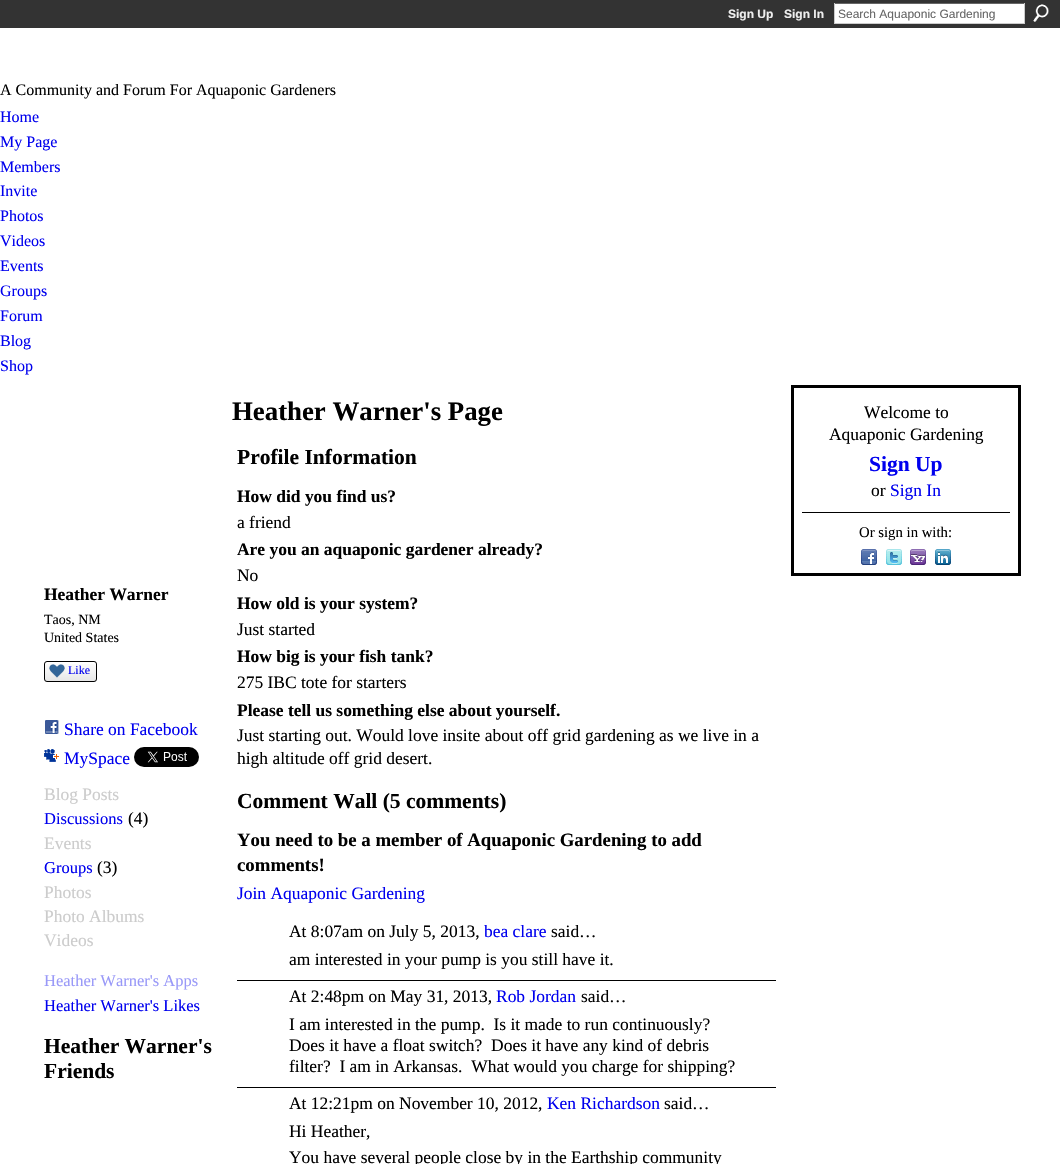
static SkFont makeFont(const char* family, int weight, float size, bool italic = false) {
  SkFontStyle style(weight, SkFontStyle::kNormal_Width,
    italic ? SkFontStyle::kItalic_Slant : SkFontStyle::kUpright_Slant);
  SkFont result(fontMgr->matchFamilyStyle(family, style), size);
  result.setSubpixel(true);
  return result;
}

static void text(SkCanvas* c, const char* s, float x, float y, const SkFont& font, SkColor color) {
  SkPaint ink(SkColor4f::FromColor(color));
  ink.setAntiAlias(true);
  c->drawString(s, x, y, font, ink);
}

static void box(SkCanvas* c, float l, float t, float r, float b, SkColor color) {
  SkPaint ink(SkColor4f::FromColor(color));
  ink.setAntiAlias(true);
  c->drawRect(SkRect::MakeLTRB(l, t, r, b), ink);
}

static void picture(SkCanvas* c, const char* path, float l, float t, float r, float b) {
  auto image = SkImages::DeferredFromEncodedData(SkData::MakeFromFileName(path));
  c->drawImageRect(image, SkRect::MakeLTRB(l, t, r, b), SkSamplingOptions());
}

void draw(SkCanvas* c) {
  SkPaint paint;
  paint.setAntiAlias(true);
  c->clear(0xffffffff);
  box(c, 0, 0, 1060, 28, 0xff333333);
  SkFont face1 = makeFont("Liberation Sans", 700, 12);
  text(c, "Sign Up", 728, 18, face1, 0xffeeeeee);
  text(c, "Sign In", 784, 18, face1, 0xffeeeeee);
  box(c, 835, 4, 1024, 23, 0xffffffff);
  box(c, 834, 3, 1025, 4, 0xff666666);
  box(c, 1024, 3, 1025, 24, 0xffcccccc);
  box(c, 834, 23, 1025, 24, 0xffcccccc);
  box(c, 834, 3, 835, 24, 0xffcccccc);
  SkFont face2 = makeFont("Liberation Sans", 400, 12);
  text(c, "Search Aquaponic Gardening", 838, 18, face2, 0xff666666);
  picture(c, "img_01.png", 1033, 4, 1049, 22);
  SkFont face3 = makeFont("Liberation Serif", 400, 16);
  text(c, "A Community and Forum For Aquaponic Gardeners", 0, 95, face3, 0xff000000);
  text(c, "Home", 0, 122, face3, 0xff0000ee);
  text(c, "My Page", 0, 147, face3, 0xff0000ee);
  text(c, "Members", 0, 172, face3, 0xff0000ee);
  text(c, "Invite", 0, 196, face3, 0xff0000ee);
  text(c, "Photos", 0, 221, face3, 0xff0000ee);
  text(c, "Videos", 0, 246, face3, 0xff0000ee);
  text(c, "Events", 0, 271, face3, 0xff0000ee);
  text(c, "Groups", 0, 296, face3, 0xff0000ee);
  text(c, "Forum", 0, 321, face3, 0xff0000ee);
  text(c, "Blog", 0, 346, face3, 0xff0000ee);
  text(c, "Shop", 0, 371, face3, 0xff0000ee);
  SkFont face4 = makeFont("Liberation Serif", 700, 17.45f);
  text(c, "Heather Warner", 44, 600, face4, 0xff000000);
  SkFont face5 = makeFont("Liberation Serif", 400, 14);
  text(c, "Taos, NM", 44, 624, face5, 0xff000000);
  text(c, "United States", 44, 642, face5, 0xff000000);
  picture(c, "img_02.png", 44, 664, 97, 682);
  paint.setStyle(SkPaint::kStroke_Style);
  paint.setStrokeWidth(1);
  paint.setColor(0xff000000);
  c->drawRoundRect(SkRect::MakeLTRB(44.5f, 661.5f, 96.5f, 681.5f), 2.5f, 2.5f, paint);
  picture(c, "img_03.png", 49, 664, 65, 678);
  SkFont face6 = makeFont("Liberation Serif", 400, 12);
  text(c, "Like", 68, 674, face6, 0xff0000ee);
  picture(c, "img_04.png", 45, 720, 59, 734);
  SkFont face7 = makeFont("Liberation Serif", 400, 17.45f);
  text(c, "Share on Facebook", 64, 735, face7, 0xff0000ee);
  picture(c, "img_05.png", 44, 749, 59, 762);
  text(c, "MySpace", 64, 764, face7, 0xff0000ee);
  picture(c, "img_06.png", 134, 747, 199, 767);
  text(c, "Blog Posts", 44, 800, face7, 0xffcccccc);
  SkFont face8 = makeFont("Liberation Serif", 400, 16.5f);
  text(c, "Discussions", 44, 824, face8, 0xff0000ee);
  text(c, "(4)", 128, 824, face7, 0xff000000);
  text(c, "Events", 44, 849, face7, 0xffcccccc);
  text(c, "Groups", 44, 873, face8, 0xff0000ee);
  text(c, "(3)", 97, 873, face7, 0xff000000);
  text(c, "Photos", 44, 898, face7, 0xffcccccc);
  text(c, "Photo Albums", 44, 922, face7, 0xffcccccc);
  text(c, "Videos", 44, 946, face7, 0xffcccccc);
  text(c, "Heather Warner's Apps", 44, 986, face8, 0xff9999f8);
  text(c, "Heather Warner's Likes", 44, 1011, face8, 0xff0000ee);
  SkFont face9 = makeFont("Liberation Serif", 700, 21.5f);
  text(c, "Heather Warner's", 44, 1053, face9, 0xff000000);
  text(c, "Friends", 44, 1078, face9, 0xff000000);
  SkFont face10 = makeFont("Liberation Serif", 700, 26.8f);
  text(c, "Heather Warner's Page", 232, 420, face10, 0xff000000);
  text(c, "Profile Information", 237, 464, face9, 0xff000000);
  text(c, "How did you find us?", 237, 502, face4, 0xff000000);
  text(c, "a friend", 237, 528, face7, 0xff000000);
  text(c, "Are you an aquaponic gardener already?", 237, 555, face4, 0xff000000);
  text(c, "No", 237, 581, face7, 0xff000000);
  text(c, "How old is your system?", 237, 609, face4, 0xff000000);
  text(c, "Just started", 237, 635, face7, 0xff000000);
  text(c, "How big is your fish tank?", 237, 662, face4, 0xff000000);
  text(c, "275 IBC tote for starters", 237, 688, face7, 0xff000000);
  text(c, "Please tell us something else about yourself.", 237, 716, face4, 0xff000000);
  text(c, "Just starting out. Would love insite about off grid gardening as we live in a", 237, 741, face7, 0xff000000);
  text(c, "high altitude off grid desert.", 237, 764, face7, 0xff000000);
  text(c, "Comment Wall (5 comments)", 237, 808, face9, 0xff000000);
  SkFont face11 = makeFont("Liberation Serif", 700, 18.8f);
  text(c, "You need to be a member of Aquaponic Gardening to add", 237, 846, face11, 0xff000000);
  text(c, "comments!", 237, 871, face11, 0xff000000);
  text(c, "Join Aquaponic Gardening", 237, 899, face7, 0xff0000ee);
  box(c, 237, 980, 776, 981, 0xff000000);
  text(c, "At 8:07am on July 5, 2013,", 289, 937, face7, 0xff000000);
  text(c, "bea clare", 484, 937, face7, 0xff0000ee);
  text(c, "said…", 551, 937, face7, 0xff000000);
  text(c, "am interested in your pump is you still have it.", 289, 965, face7, 0xff000000);
  box(c, 237, 1087, 776, 1088, 0xff000000);
  text(c, "At 2:48pm on May 31, 2013,", 289, 1002, face7, 0xff000000);
  text(c, "Rob Jordan", 496, 1002, face7, 0xff0000ee);
  text(c, "said…", 581, 1002, face7, 0xff000000);
  text(c, "I am interested in the pump.  Is it made to run continuously?", 289, 1030, face7, 0xff000000);
  text(c, "Does it have a float switch?  Does it have any kind of debris", 289, 1051, face7, 0xff000000);
  text(c, "filter?  I am in Arkansas.  What would you charge for shipping?", 289, 1072, face7, 0xff000000);
  text(c, "At 12:21pm on November 10, 2012,", 289, 1109, face7, 0xff000000);
  text(c, "Ken Richardson", 547, 1109, face7, 0xff0000ee);
  text(c, "said…", 664, 1109, face7, 0xff000000);
  text(c, "Hi Heather,", 289, 1137, face7, 0xff000000);
  text(c, "You have several people close by in the Earthship community", 289, 1163, face7, 0xff000000);
  paint.setStrokeWidth(3);
  c->drawRect(SkRect::MakeLTRB(792.5f, 386.5f, 1019.5f, 574.5f), paint);
  text(c, "Welcome to", 864, 418, face7, 0xff000000);
  text(c, "Aquaponic Gardening", 829, 440, face7, 0xff000000);
  text(c, "Sign Up", 869, 471, face9, 0xff0000ee);
  text(c, "or", 871, 496, face7, 0xff000000);
  text(c, "Sign In", 890, 496, face7, 0xff0000ee);
  box(c, 802, 512, 1010, 513, 0xff000000);
  SkFont face12 = makeFont("Liberation Serif", 400, 14.75f);
  text(c, "Or sign in with:", 859, 537, face12, 0xff000000);
  picture(c, "img_07.png", 861, 549, 877, 565);
  picture(c, "img_08.png", 886, 549, 902, 565);
  picture(c, "img_09.png", 910, 549, 926, 565);
  picture(c, "img_10.png", 935, 549, 951, 565);
}
